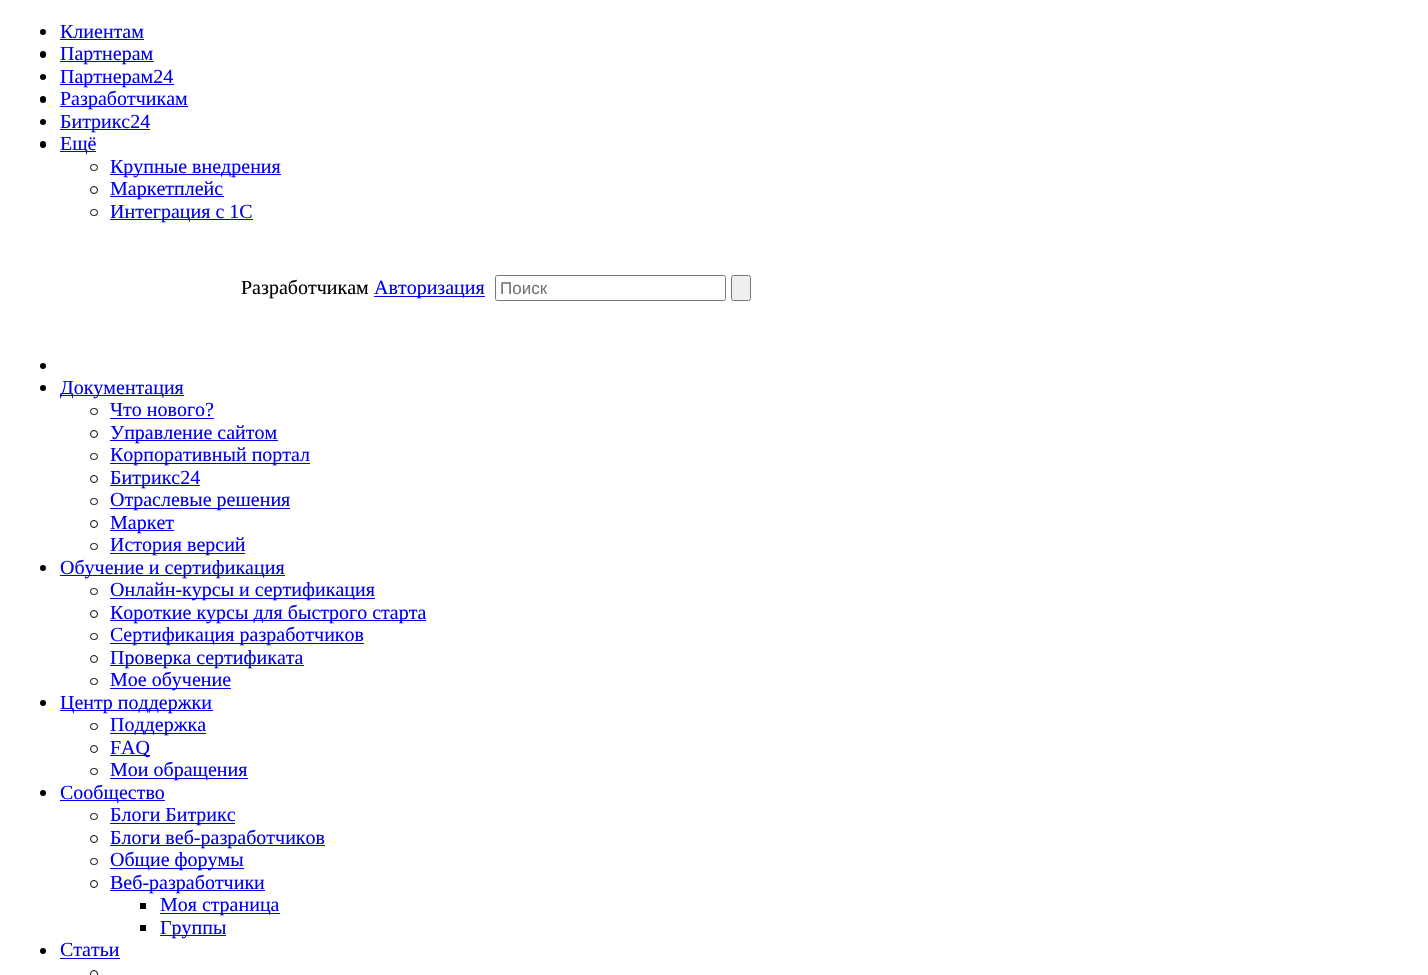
static SkFont makeFont(const char* family, int weight, float size, bool italic = false) {
  SkFontStyle style(weight, SkFontStyle::kNormal_Width,
    italic ? SkFontStyle::kItalic_Slant : SkFontStyle::kUpright_Slant);
  SkFont result(fontMgr->matchFamilyStyle(family, style), size);
  result.setSubpixel(true);
  return result;
}

static void text(SkCanvas* c, const char* s, float x, float y, const SkFont& font, SkColor color) {
  SkPaint ink(SkColor4f::FromColor(color));
  ink.setAntiAlias(true);
  c->drawString(s, x, y, font, ink);
}

static void box(SkCanvas* c, float l, float t, float r, float b, SkColor color) {
  SkPaint ink(SkColor4f::FromColor(color));
  ink.setAntiAlias(true);
  c->drawRect(SkRect::MakeLTRB(l, t, r, b), ink);
}

static void roundBox(SkCanvas* c, float l, float t, float r, float b, float radius, SkColor color) {
  SkPaint ink(SkColor4f::FromColor(color));
  ink.setAntiAlias(true);
  c->drawRoundRect(SkRect::MakeLTRB(l, t, r, b), radius, radius, ink);
}

void draw(SkCanvas* c) {
  SkPaint paint;
  paint.setAntiAlias(true);
  c->clear(0xffffffff);
  paint.setColor(0xff000000);
  c->drawCircle(43, 32, 3, paint);
  SkFont face1 = makeFont("Liberation Serif", 400, 20);
  text(c, "Клиентам", 60, 38, face1, 0xff0000ee);
  box(c, 60, 39, 144, 40, 0xff0000ee);
  roundBox(c, 40, 51, 46, 58, 3, 0xff000000);
  box(c, 60, 61, 154, 62, 0xff0000ee);
  text(c, "Партнерам", 60, 60, face1, 0xff0000ee);
  c->drawCircle(43, 77, 3, paint);
  box(c, 60, 84, 174, 85, 0xff0000ee);
  text(c, "Партнерам24", 60, 83, face1, 0xff0000ee);
  roundBox(c, 40, 96, 46, 103, 3, 0xff000000);
  box(c, 60, 106, 188, 107, 0xff0000ee);
  text(c, "Разработчикам", 60, 105, face1, 0xff0000ee);
  c->drawCircle(43, 122, 3, paint);
  box(c, 60, 129, 150, 130, 0xff0000ee);
  text(c, "Битрикс24", 60, 128, face1, 0xff0000ee);
  roundBox(c, 40, 141, 46, 148, 3, 0xff000000);
  box(c, 60, 151, 96, 152, 0xff0000ee);
  text(c, "Ещё", 60, 150, face1, 0xff0000ee);
  paint.setStyle(SkPaint::kStroke_Style);
  paint.setStrokeWidth(1);
  c->drawRoundRect(SkRect::MakeLTRB(90.5f, 164.5f, 97.5f, 170.5f), 3, 3, paint);
  box(c, 110, 174, 281, 175, 0xff0000ee);
  text(c, "Крупные внедрения", 110, 173, face1, 0xff0000ee);
  c->drawCircle(94, 190, 3.5f, paint);
  box(c, 110, 196, 224, 197, 0xff0000ee);
  text(c, "Маркетплейс", 110, 195, face1, 0xff0000ee);
  c->drawRoundRect(SkRect::MakeLTRB(90.5f, 209.5f, 97.5f, 215.5f), 3, 3, paint);
  box(c, 110, 219, 253, 220, 0xff0000ee);
  text(c, "Интеграция с 1С", 110, 218, face1, 0xff0000ee);
  text(c, "Разработчикам", 241, 294, face1, 0xff000000);
  box(c, 374, 296, 485, 297, 0xff0000ee);
  text(c, "Авторизация", 374, 294, face1, 0xff0000ee);
  paint.setColor(0xff767676);
  c->drawRoundRect(SkRect::MakeLTRB(495.5f, 275.5f, 725.5f, 300.5f), 2, 2, paint);
  SkFont face2 = makeFont("Liberation Sans", 400, 17);
  text(c, "Поиск", 500, 294, face2, 0xff757575);
  paint.setStyle(SkPaint::kFill_Style);
  paint.setColor(0xffefefef);
  c->drawRoundRect(SkRect::MakeLTRB(731.5f, 275.5f, 750.5f, 300.5f), 2, 2, paint);
  paint.setStyle(SkPaint::kStroke_Style);
  paint.setColor(0xff767676);
  c->drawRoundRect(SkRect::MakeLTRB(731.5f, 275.5f, 750.5f, 300.5f), 2, 2, paint);
  paint.setStyle(SkPaint::kFill_Style);
  paint.setColor(0xff000000);
  c->drawCircle(43, 366, 3, paint);
  c->drawCircle(43, 388, 3, paint);
  box(c, 60, 395, 184, 396, 0xff0000ee);
  text(c, "Документация", 60, 394, face1, 0xff0000ee);
  paint.setStyle(SkPaint::kStroke_Style);
  c->drawRoundRect(SkRect::MakeLTRB(90.5f, 408.5f, 97.5f, 414.5f), 3, 3, paint);
  text(c, "Что нового?", 110, 416, face1, 0xff0000ee);
  box(c, 110, 418, 214, 419, 0xff0000ee);
  c->drawCircle(94, 434, 3.5f, paint);
  box(c, 110, 440, 278, 441, 0xff0000ee);
  text(c, "Управление сайтом", 110, 439, face1, 0xff0000ee);
  c->drawRoundRect(SkRect::MakeLTRB(90.5f, 453.5f, 97.5f, 459.5f), 3, 3, paint);
  box(c, 110, 463, 310, 464, 0xff0000ee);
  text(c, "Корпоративный портал", 110, 461, face1, 0xff0000ee);
  c->drawCircle(94, 479, 3.5f, paint);
  box(c, 110, 485, 200, 486, 0xff0000ee);
  text(c, "Битрикс24", 110, 484, face1, 0xff0000ee);
  c->drawRoundRect(SkRect::MakeLTRB(90.5f, 498.5f, 97.5f, 504.5f), 3, 3, paint);
  box(c, 110, 508, 290, 509, 0xff0000ee);
  text(c, "Отраслевые решения", 110, 506, face1, 0xff0000ee);
  c->drawCircle(94, 524, 3.5f, paint);
  box(c, 110, 530, 174, 531, 0xff0000ee);
  text(c, "Маркет", 110, 529, face1, 0xff0000ee);
  c->drawRoundRect(SkRect::MakeLTRB(90.5f, 543.5f, 97.5f, 549.5f), 3, 3, paint);
  box(c, 110, 553, 245, 554, 0xff0000ee);
  text(c, "История версий", 110, 551, face1, 0xff0000ee);
  paint.setStyle(SkPaint::kFill_Style);
  c->drawCircle(43, 568, 3, paint);
  box(c, 60, 575, 285, 576, 0xff0000ee);
  text(c, "Обучение и сертификация", 60, 574, face1, 0xff0000ee);
  paint.setStyle(SkPaint::kStroke_Style);
  c->drawRoundRect(SkRect::MakeLTRB(90.5f, 588.5f, 97.5f, 594.5f), 3, 3, paint);
  box(c, 110, 598, 375, 599, 0xff0000ee);
  text(c, "Онлайн-курсы и сертификация", 110, 596, face1, 0xff0000ee);
  c->drawCircle(94, 614, 3.5f, paint);
  box(c, 110, 620, 426, 621, 0xff0000ee);
  text(c, "Короткие курсы для быстрого старта", 110, 619, face1, 0xff0000ee);
  c->drawRoundRect(SkRect::MakeLTRB(90.5f, 633.5f, 97.5f, 639.5f), 3, 3, paint);
  box(c, 110, 643, 364, 644, 0xff0000ee);
  text(c, "Сертификация разработчиков", 110, 641, face1, 0xff0000ee);
  c->drawCircle(94, 659, 3.5f, paint);
  box(c, 110, 665, 304, 666, 0xff0000ee);
  text(c, "Проверка сертификата", 110, 664, face1, 0xff0000ee);
  c->drawRoundRect(SkRect::MakeLTRB(90.5f, 678.5f, 97.5f, 684.5f), 3, 3, paint);
  box(c, 110, 688, 231, 689, 0xff0000ee);
  text(c, "Мое обучение", 110, 686, face1, 0xff0000ee);
  paint.setStyle(SkPaint::kFill_Style);
  c->drawCircle(43, 703, 3, paint);
  box(c, 60, 710, 213, 711, 0xff0000ee);
  text(c, "Центр поддержки", 60, 709, face1, 0xff0000ee);
  paint.setStyle(SkPaint::kStroke_Style);
  c->drawRoundRect(SkRect::MakeLTRB(90.5f, 723.5f, 97.5f, 729.5f), 3, 3, paint);
  box(c, 110, 733, 206, 734, 0xff0000ee);
  text(c, "Поддержка", 110, 731, face1, 0xff0000ee);
  c->drawCircle(94, 749, 3.5f, paint);
  box(c, 110, 755, 150, 756, 0xff0000ee);
  text(c, "FAQ", 110, 754, face1, 0xff0000ee);
  c->drawRoundRect(SkRect::MakeLTRB(90.5f, 768.5f, 97.5f, 774.5f), 3, 3, paint);
  box(c, 110, 778, 248, 779, 0xff0000ee);
  text(c, "Мои обращения", 110, 776, face1, 0xff0000ee);
  paint.setStyle(SkPaint::kFill_Style);
  c->drawCircle(43, 793, 3, paint);
  box(c, 60, 800, 165, 801, 0xff0000ee);
  text(c, "Сообщество", 60, 799, face1, 0xff0000ee);
  paint.setStyle(SkPaint::kStroke_Style);
  c->drawRoundRect(SkRect::MakeLTRB(90.5f, 813.5f, 97.5f, 819.5f), 3, 3, paint);
  box(c, 110, 823, 235, 824, 0xff0000ee);
  text(c, "Блоги Битрикс", 110, 821, face1, 0xff0000ee);
  c->drawCircle(94, 839, 3.5f, paint);
  box(c, 110, 845, 325, 846, 0xff0000ee);
  text(c, "Блоги веб-разработчиков", 110, 844, face1, 0xff0000ee);
  c->drawRoundRect(SkRect::MakeLTRB(90.5f, 858.5f, 97.5f, 864.5f), 3, 3, paint);
  box(c, 110, 868, 244, 869, 0xff0000ee);
  text(c, "Общие форумы", 110, 866, face1, 0xff0000ee);
  c->drawCircle(94, 884, 3.5f, paint);
  box(c, 110, 890, 265, 891, 0xff0000ee);
  text(c, "Веб-разработчики", 110, 889, face1, 0xff0000ee);
  box(c, 140, 903, 146, 909, 0xff000000);
  box(c, 160, 913, 280, 914, 0xff0000ee);
  text(c, "Моя страница", 160, 911, face1, 0xff0000ee);
  box(c, 140, 925, 146, 931, 0xff000000);
  box(c, 160, 935, 226, 936, 0xff0000ee);
  text(c, "Группы", 160, 934, face1, 0xff0000ee);
  paint.setStyle(SkPaint::kFill_Style);
  c->drawCircle(43, 951, 3, paint);
  text(c, "Статьи", 60, 956, face1, 0xff0000ee);
  box(c, 60, 958, 120, 959, 0xff0000ee);
  paint.setStyle(SkPaint::kStroke_Style);
  c->drawCircle(94, 974, 3.5f, paint);
}
